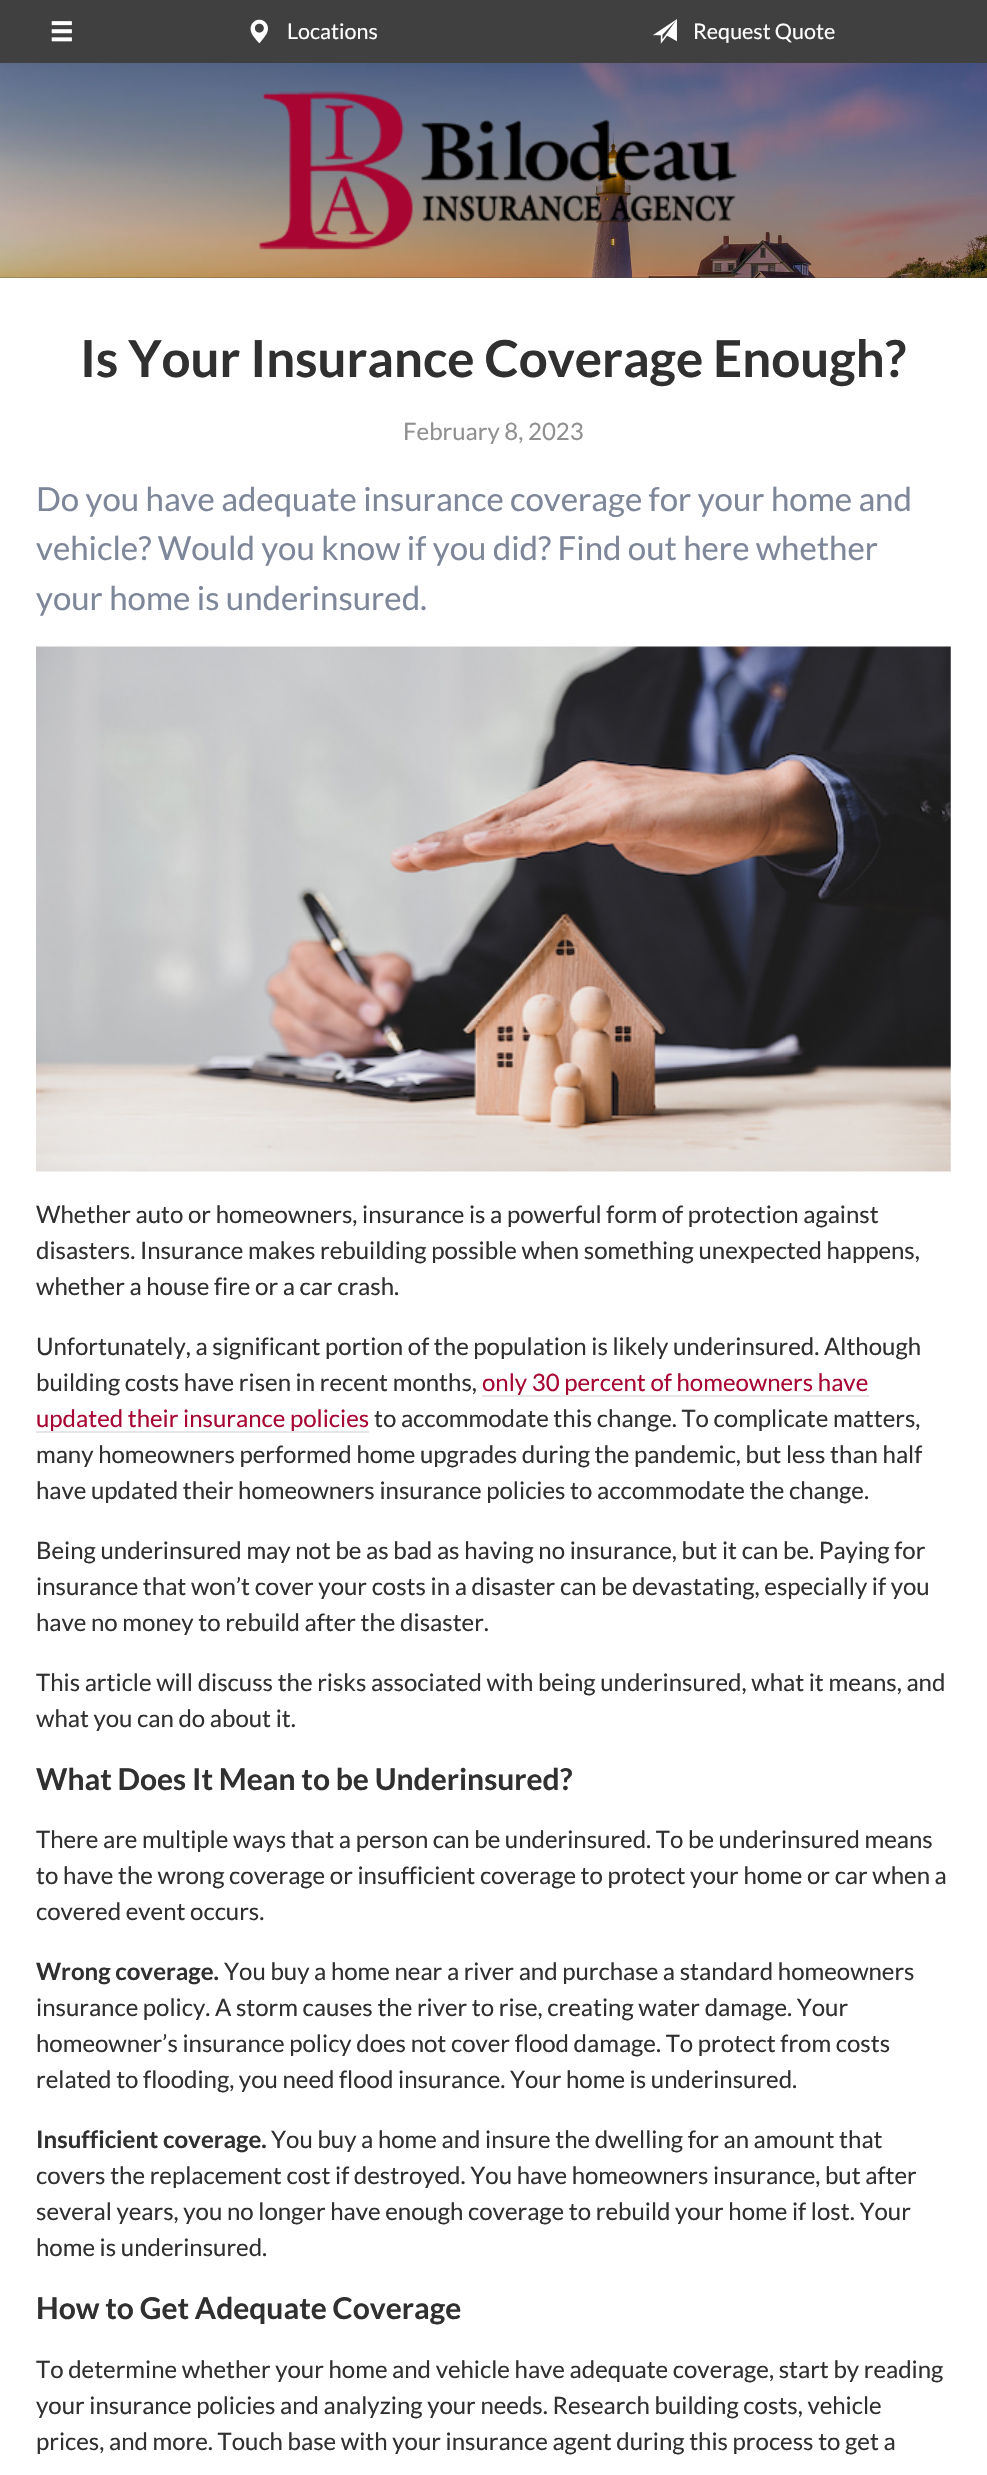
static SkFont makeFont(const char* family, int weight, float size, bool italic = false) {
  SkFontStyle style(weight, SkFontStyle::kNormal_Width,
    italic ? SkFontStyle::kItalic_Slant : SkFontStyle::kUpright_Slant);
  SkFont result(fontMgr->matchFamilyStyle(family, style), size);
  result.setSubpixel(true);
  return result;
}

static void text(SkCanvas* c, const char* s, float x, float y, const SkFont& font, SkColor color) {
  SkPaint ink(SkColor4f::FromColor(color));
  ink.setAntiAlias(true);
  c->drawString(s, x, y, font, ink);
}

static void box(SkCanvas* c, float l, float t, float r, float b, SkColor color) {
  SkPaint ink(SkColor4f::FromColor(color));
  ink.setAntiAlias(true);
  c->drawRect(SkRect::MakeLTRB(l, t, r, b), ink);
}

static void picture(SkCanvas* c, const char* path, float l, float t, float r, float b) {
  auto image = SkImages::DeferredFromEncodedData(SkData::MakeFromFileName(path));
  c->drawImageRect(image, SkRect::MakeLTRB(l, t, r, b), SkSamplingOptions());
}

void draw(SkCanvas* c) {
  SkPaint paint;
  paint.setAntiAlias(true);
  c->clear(0xff404040);
  picture(c, "img_01.png", 51, 21, 72, 42);
  picture(c, "img_02.png", 250, 19, 268, 44);
  SkFont face1 = makeFont("Lato", 400, 21.5f);
  text(c, "Locations", 287, 39, face1, 0xffffffff);
  picture(c, "img_03.png", 653, 19, 677, 44);
  text(c, "Request Quote", 693, 39, face1, 0xffffffff);
  picture(c, "img_04.png", 0, 63, 987, 278);
  picture(c, "img_05.png", 259, 91, 737, 250);
  box(c, 0, 278, 987, 2475, 0xffffffff);
  SkFont face2 = makeFont("Lato", 700, 51);
  text(c, "Is Your Insurance Coverage Enough?", 80, 377, face2, 0xff303030);
  SkFont face3 = makeFont("Lato", 400, 24);
  text(c, "February 8, 2023", 403, 440, face3, 0xff909090);
  SkFont face4 = makeFont("Lato", 400, 33);
  text(c, "Do you have adequate insurance coverage for your home and", 36, 511, face4, 0xff7e8799);
  text(c, "vehicle? Would you know if you did? Find out here whether", 36, 560, face4, 0xff7e8799);
  text(c, "your home is underinsured.", 36, 610, face4, 0xff7e8799);
  picture(c, "img_06.png", 36, 646, 951, 1172);
  text(c, "Whether auto or homeowners, insurance is a powerful form of protection against", 36, 1223, face3, 0xff303030);
  text(c, "disasters. Insurance makes rebuilding possible when something unexpected happens,", 36, 1259, face3, 0xff303030);
  text(c, "whether a house fire or a car crash.", 36, 1295, face3, 0xff303030);
  text(c, "Unfortunately, a significant portion of the population is likely underinsured. Although", 36, 1355, face3, 0xff303030);
  text(c, "building costs have risen in recent months,", 36, 1391, face3, 0xff303030);
  box(c, 482, 1395, 869, 1397, 0xffe6e6e6);
  text(c, "only 30 percent of homeowners have", 482, 1391, face3, 0xffa80632);
  box(c, 36, 1431, 369, 1433, 0xffe6e6e6);
  text(c, "updated their insurance policies", 36, 1427, face3, 0xffa80632);
  text(c, "to accommodate this change. To complicate matters,", 374, 1427, face3, 0xff303030);
  text(c, "many homeowners performed home upgrades during the pandemic, but less than half", 36, 1463, face3, 0xff303030);
  text(c, "have updated their homeowners insurance policies to accommodate the change.", 36, 1499, face3, 0xff303030);
  text(c, "Being underinsured may not be as bad as having no insurance, but it can be. Paying for", 36, 1559, face3, 0xff303030);
  text(c, "insurance that won’t cover your costs in a disaster can be devastating, especially if you", 36, 1595, face3, 0xff303030);
  text(c, "have no money to rebuild after the disaster.", 36, 1631, face3, 0xff303030);
  text(c, "This article will discuss the risks associated with being underinsured, what it means, and", 36, 1691, face3, 0xff303030);
  text(c, "what you can do about it.", 36, 1727, face3, 0xff303030);
  SkFont face5 = makeFont("Lato", 700, 30);
  text(c, "What Does It Mean to be Underinsured?", 36, 1790, face5, 0xff303030);
  text(c, "There are multiple ways that a person can be underinsured. To be underinsured means", 36, 1848, face3, 0xff303030);
  text(c, "to have the wrong coverage or insufficient coverage to protect your home or car when a", 36, 1884, face3, 0xff303030);
  text(c, "covered event occurs.", 36, 1920, face3, 0xff303030);
  SkFont face6 = makeFont("Lato", 700, 24);
  text(c, "Wrong coverage.", 36, 1980, face6, 0xff303030);
  text(c, "You buy a home near a river and purchase a standard homeowners", 224, 1980, face3, 0xff303030);
  text(c, "insurance policy. A storm causes the river to rise, creating water damage. Your", 36, 2016, face3, 0xff303030);
  text(c, "homeowner’s insurance policy does not cover flood damage. To protect from costs", 36, 2052, face3, 0xff303030);
  text(c, "related to flooding, you need flood insurance. Your home is underinsured.", 36, 2088, face3, 0xff303030);
  text(c, "Insufficient coverage.", 36, 2148, face6, 0xff303030);
  text(c, "You buy a home and insure the dwelling for an amount that", 271, 2148, face3, 0xff303030);
  text(c, "covers the replacement cost if destroyed. You have homeowners insurance, but after", 36, 2184, face3, 0xff303030);
  text(c, "several years, you no longer have enough coverage to rebuild your home if lost. Your", 36, 2220, face3, 0xff303030);
  text(c, "home is underinsured.", 36, 2256, face3, 0xff303030);
  text(c, "How to Get Adequate Coverage", 36, 2319, face5, 0xff303030);
  text(c, "To determine whether your home and vehicle have adequate coverage, start by reading", 36, 2378, face3, 0xff303030);
  text(c, "your insurance policies and analyzing your needs. Research building costs, vehicle", 36, 2414, face3, 0xff303030);
  text(c, "prices, and more. Touch base with your insurance agent during this process to get a", 36, 2450, face3, 0xff303030);
}
